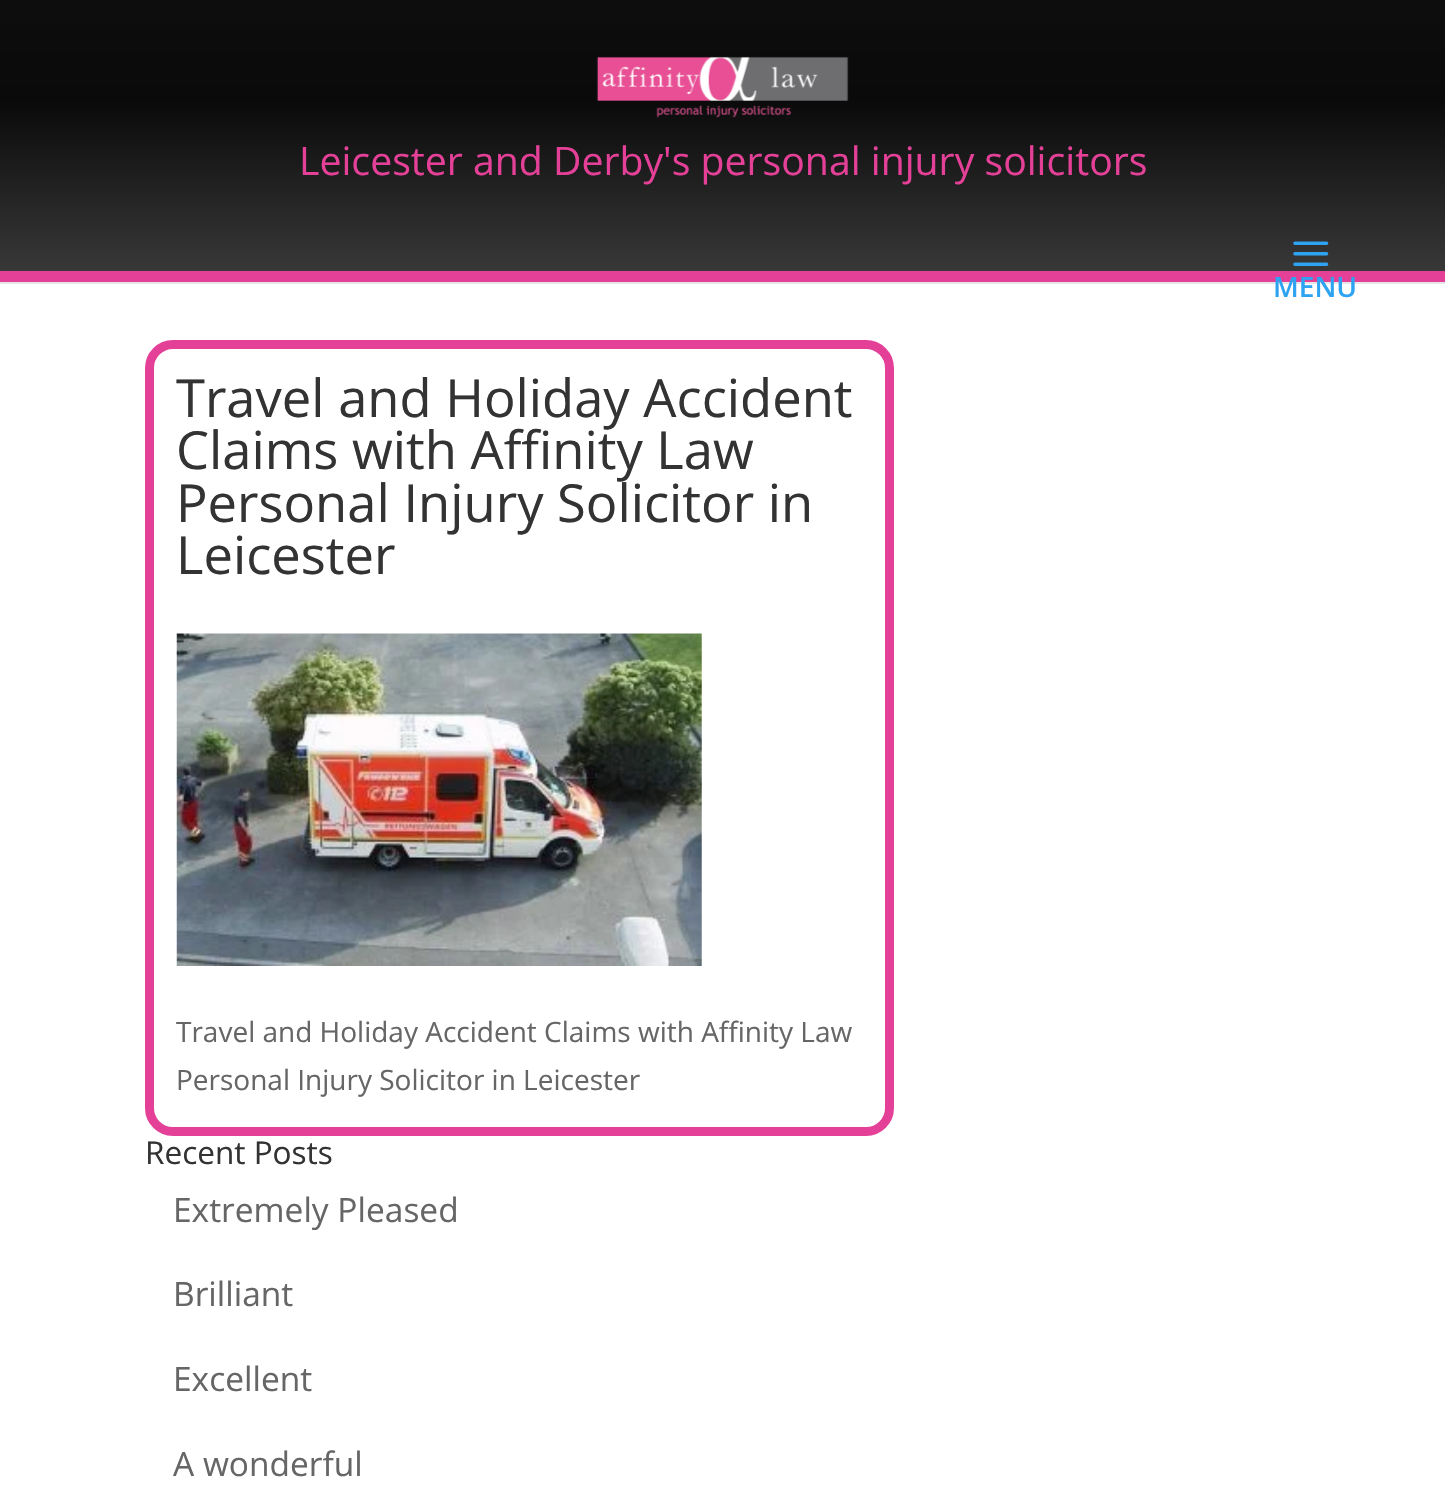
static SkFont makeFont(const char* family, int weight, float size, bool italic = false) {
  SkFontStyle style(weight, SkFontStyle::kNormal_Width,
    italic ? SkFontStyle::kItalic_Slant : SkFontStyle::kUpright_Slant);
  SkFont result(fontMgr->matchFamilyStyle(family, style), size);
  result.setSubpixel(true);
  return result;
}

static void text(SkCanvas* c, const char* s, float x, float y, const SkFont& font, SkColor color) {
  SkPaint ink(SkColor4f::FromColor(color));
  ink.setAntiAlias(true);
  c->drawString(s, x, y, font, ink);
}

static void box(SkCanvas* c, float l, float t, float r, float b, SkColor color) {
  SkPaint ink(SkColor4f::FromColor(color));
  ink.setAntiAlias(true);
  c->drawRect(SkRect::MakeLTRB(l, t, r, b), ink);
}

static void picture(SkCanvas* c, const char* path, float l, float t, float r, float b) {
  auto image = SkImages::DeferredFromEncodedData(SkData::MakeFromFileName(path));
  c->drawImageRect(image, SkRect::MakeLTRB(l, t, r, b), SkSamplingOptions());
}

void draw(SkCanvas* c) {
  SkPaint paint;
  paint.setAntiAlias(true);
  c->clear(0xffffffff);
  paint.setColor(0xffe6e6e6);
  c->drawPath(SkPathBuilder().moveTo(0, 282).lineTo(0, 284).lineTo(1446, 284).lineTo(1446, 2).lineTo(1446, 282).close().detach(), paint);
  {
    const SkColor colors[] = {0xff959595, 0xff0d0d0d, 0xff0a0a0a, 0xff383838};
    const float stops[] = {0, 0, 0.37f, 1};
    const SkPoint ends[] = {{723, 0}, {723, 271}};
    paint.setShader(SkGradientShader::MakeLinear(ends, colors, stops, 4, SkTileMode::kClamp));
    paint.setAlpha(255);
  }
  c->drawRect(SkRect::MakeLTRB(0, 0, 1445, 271), paint);
  box(c, 0, 271, 1445, 282, 0xffe44097);
  picture(c, "img_01.png", 596, 56, 849, 118);
  SkFont face1 = makeFont("Open Sans", 400, 39.2f);
  text(c, "Leicester and Derby's personal injury solicitors", 299, 175, face1, 0xffe44097);
  picture(c, "img_02.png", 1293, 241, 1329, 266);
  SkFont face2 = makeFont("Open Sans", 600, 28);
  text(c, "MENU", 1273, 297, face2, 0xff2ea3f2);
  paint.setStyle(SkPaint::kStroke_Style);
  paint.setStrokeWidth(9);
  paint.setShader(nullptr);
  paint.setColor(0xffe44097);
  c->drawRoundRect(SkRect::MakeLTRB(149.5f, 344.5f, 889.5f, 1131.5f), 23.5f, 23.5f, paint);
  SkFont face3 = makeFont("Open Sans", 400, 52.5f);
  text(c, "Travel and Holiday Accident", 176, 417, face3, 0xff333333);
  text(c, "Claims with Affinity Law", 176, 469, face3, 0xff333333);
  text(c, "Personal Injury Solicitor in", 176, 522, face3, 0xff333333);
  text(c, "Leicester", 176, 574, face3, 0xff333333);
  picture(c, "img_03.png", 176, 633, 702, 966);
  SkFont face4 = makeFont("Open Sans", 400, 28);
  text(c, "Travel and Holiday Accident Claims with Affinity Law", 176, 1042, face4, 0xff666666);
  text(c, "Personal Injury Solicitor in Leicester", 176, 1090, face4, 0xff666666);
  SkFont face5 = makeFont("Open Sans", 400, 31.5f);
  text(c, "Recent Posts", 145, 1164, face5, 0xff333333);
  SkFont face6 = makeFont("Open Sans", 400, 33.5f);
  text(c, "Extremely Pleased", 173, 1222, face6, 0xff666666);
  text(c, "Brilliant", 173, 1306, face6, 0xff666666);
  text(c, "Excellent", 173, 1391, face6, 0xff666666);
  text(c, "A wonderful", 173, 1476, face6, 0xff666666);
}
